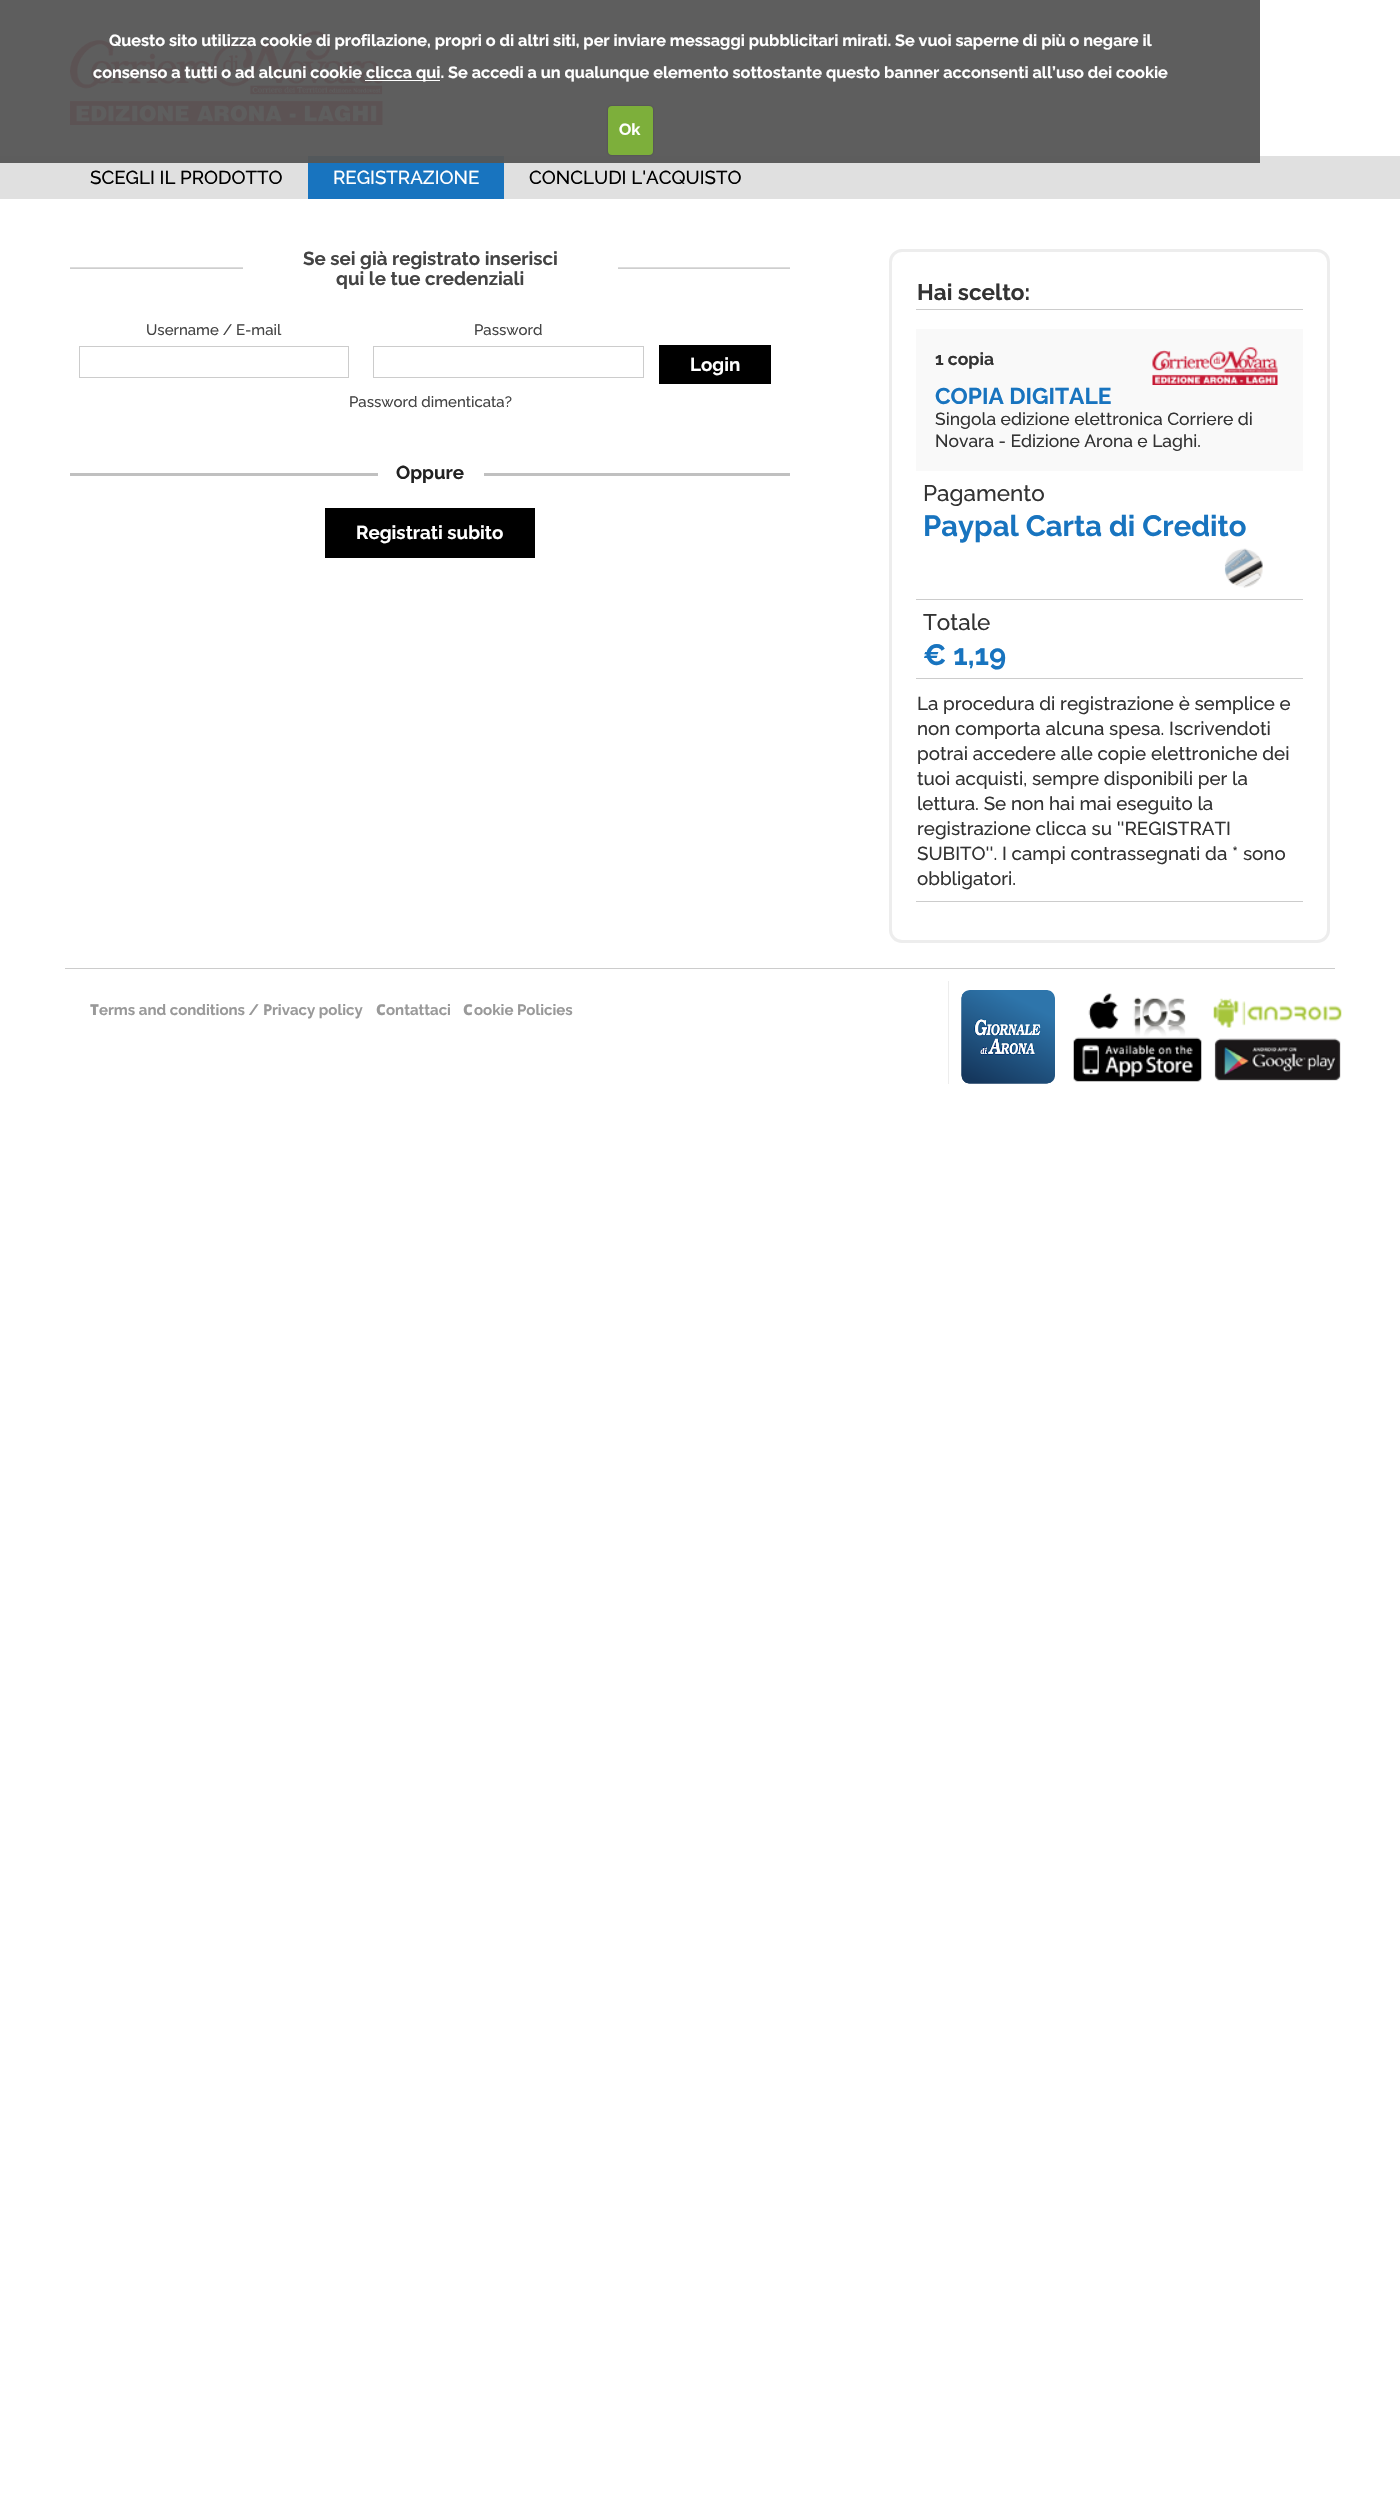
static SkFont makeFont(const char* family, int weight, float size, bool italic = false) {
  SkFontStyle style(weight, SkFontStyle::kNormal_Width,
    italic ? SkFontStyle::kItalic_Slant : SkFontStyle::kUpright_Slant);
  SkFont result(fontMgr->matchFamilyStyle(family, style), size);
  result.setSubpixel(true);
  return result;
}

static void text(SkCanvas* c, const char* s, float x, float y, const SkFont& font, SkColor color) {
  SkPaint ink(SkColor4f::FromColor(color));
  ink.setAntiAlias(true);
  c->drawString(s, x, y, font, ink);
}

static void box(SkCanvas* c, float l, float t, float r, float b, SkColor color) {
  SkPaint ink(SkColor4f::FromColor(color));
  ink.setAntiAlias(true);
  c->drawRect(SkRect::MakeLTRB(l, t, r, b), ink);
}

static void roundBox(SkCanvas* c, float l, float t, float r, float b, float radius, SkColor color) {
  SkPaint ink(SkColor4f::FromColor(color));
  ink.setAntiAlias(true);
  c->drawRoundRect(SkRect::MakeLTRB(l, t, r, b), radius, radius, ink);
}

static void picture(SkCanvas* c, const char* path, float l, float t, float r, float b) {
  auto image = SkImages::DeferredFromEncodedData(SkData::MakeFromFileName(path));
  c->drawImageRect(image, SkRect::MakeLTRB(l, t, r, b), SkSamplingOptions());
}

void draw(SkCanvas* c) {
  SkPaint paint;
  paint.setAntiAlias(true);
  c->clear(0xffffffff);
  box(c, 0, 0, 1260, 156, 0xff5e5e5e);
  picture(c, "img_01.png", 70, 31, 383, 125);
  SkFont face1 = makeFont("Raleway", 700, 16.25f);
  text(c, "Questo sito utilizza cookie di profilazione, propri o di altri siti, per inviare messaggi pubblicitari mirati. Se vuoi saperne di più o negare il", 109, 46, face1, 0xffffffff);
  text(c, "consenso a tutti o ad alcuni cookie", 93, 78, face1, 0xffffffff);
  box(c, 365, 80, 440, 81, 0xffffffff);
  text(c, "clicca qui. Se accedi a un qualunque elemento sottostante questo banner acconsenti all’uso dei cookie", 366, 78, face1, 0xffffffff);
  box(c, 0, 156, 1400, 199, 0xffe0e0e0);
  box(c, 0, 156, 1260, 163, 0xff5d5d5d);
  paint.setColor(0x40000000);
  paint.setMaskFilter(SkMaskFilter::MakeBlur(kNormal_SkBlurStyle, 1));
  c->drawRoundRect(SkRect::MakeLTRB(608, 106, 653, 155), 4, 4, paint);
  paint.setMaskFilter(nullptr);
  roundBox(c, 608, 106, 653, 155, 4, 0xff7daf3b);
  text(c, "Ok", 619, 135, face1, 0xffffffff);
  SkFont face2 = makeFont("Raleway", 500, 18.75f);
  text(c, "SCEGLI IL PRODOTTO", 90, 184, face2, 0xff000000);
  box(c, 308, 163, 504, 199, 0xff1874bf);
  box(c, 308, 156, 504, 163, 0xff53585b);
  text(c, "REGISTRAZIONE", 333, 184, face2, 0xffffffff);
  text(c, "CONCLUDI L'ACQUISTO", 529, 184, face2, 0xff000000);
  picture(c, "img_02.png", 70, 267, 790, 269);
  box(c, 243, 267, 618, 269, 0xffffffff);
  SkFont face3 = makeFont("Raleway", 700, 18.75f);
  text(c, "Se sei già registrato inserisci", 303, 265, face3, 0xff444444);
  text(c, "qui le tue credenziali", 336, 285, face3, 0xff444444);
  SkFont face4 = makeFont("Raleway", 500, 15);
  text(c, "Username / E-mail", 146, 335, face4, 0xff444444);
  paint.setStyle(SkPaint::kStroke_Style);
  paint.setStrokeWidth(1);
  paint.setColor(0xffcccccc);
  c->drawRect(SkRect::MakeLTRB(79.5f, 346.5f, 348.5f, 377.5f), paint);
  text(c, "Password", 474, 335, face4, 0xff444444);
  c->drawRect(SkRect::MakeLTRB(373.5f, 346.5f, 643.5f, 377.5f), paint);
  box(c, 659, 345, 771, 384, 0xff000000);
  text(c, "Login", 690, 371, face3, 0xffffffff);
  text(c, "Password dimenticata?", 349, 407, face4, 0xff444444);
  box(c, 70, 473, 790, 476, 0xffc0c0c0);
  roundBox(c, 378, 450, 484, 495, 8, 0xffffffff);
  text(c, "Oppure", 396, 479, face3, 0xff222222);
  box(c, 325, 508, 535, 558, 0xff000000);
  text(c, "Registrati subito", 356, 539, face3, 0xffffffff);
  paint.setStrokeWidth(3);
  paint.setColor(0xffededed);
  c->drawRoundRect(SkRect::MakeLTRB(890.5f, 250.5f, 1328.5f, 941.5f), 11.5f, 11.5f, paint);
  box(c, 916, 309, 1303, 310, 0xffcccccc);
  SkFont face5 = makeFont("Raleway", 700, 22.5f);
  text(c, "Hai scelto:", 917, 300, face5, 0xff333333);
  box(c, 916, 329, 1303, 471, 0xfff9f9f9);
  picture(c, "img_03.png", 1152, 347, 1278, 385);
  SkFont face6 = makeFont("Raleway", 700, 17.5f);
  text(c, "1 copia", 935, 365, face6, 0xff333333);
  SkFont face7 = makeFont("Raleway", 500, 17.5f);
  text(c, "Singola edizione elettronica Corriere di", 935, 425, face7, 0xff333333);
  text(c, "Novara - Edizione Arona e Laghi.", 935, 447, face7, 0xff333333);
  SkFont face8 = makeFont("Raleway", 700, 22.75f);
  text(c, "COPIA DIGITALE", 935, 404, face8, 0xff1874bf);
  box(c, 916, 599, 1303, 600, 0xffcccccc);
  SkFont face9 = makeFont("Raleway", 500, 22.5f);
  text(c, "Pagamento", 923, 501, face9, 0xff333333);
  SkFont face10 = makeFont("Raleway", 700, 29.25f);
  text(c, "Paypal Carta di Credito", 923, 536, face10, 0xff1874bf);
  picture(c, "img_04.png", 1224, 548, 1263, 588);
  box(c, 916, 678, 1303, 679, 0xffcccccc);
  text(c, "Totale", 923, 630, face9, 0xff333333);
  text(c, "€ 1,19", 923, 665, face10, 0xff1874bf);
  box(c, 916, 901, 1303, 902, 0xffcccccc);
  text(c, "La procedura di registrazione è semplice e", 917, 710, face2, 0xff333333);
  text(c, "non comporta alcuna spesa. Iscrivendoti", 917, 735, face2, 0xff333333);
  text(c, "potrai accedere alle copie elettroniche dei", 917, 760, face2, 0xff333333);
  text(c, "tuoi acquisti, sempre disponibili per la", 917, 785, face2, 0xff333333);
  text(c, "lettura. Se non hai mai eseguito la", 917, 810, face2, 0xff333333);
  text(c, "registrazione clicca su ''REGISTRATI", 917, 835, face2, 0xff333333);
  text(c, "SUBITO''. I campi contrassegnati da * sono", 917, 860, face2, 0xff333333);
  text(c, "obbligatori.", 917, 885, face2, 0xff333333);
  box(c, 65, 968, 1335, 969, 0xffcccccc);
  SkFont face11 = makeFont("Noto Sans", 900, 15);
  text(c, "T", 90, 1015, face11, 0xff999999);
  SkFont face12 = makeFont("Raleway", 700, 15);
  text(c, "erms and conditions /", 99, 1015, face12, 0xff999999);
  SkFont face13 = makeFont("Noto Sans", 700, 15);
  text(c, "P", 263, 1015, face13, 0xff999999);
  text(c, "rivacy policy", 272, 1015, face12, 0xff999999);
  text(c, "C", 376, 1015, face11, 0xff999999);
  text(c, "ontattaci", 386, 1015, face12, 0xff999999);
  text(c, "C", 463, 1015, face11, 0xff999999);
  text(c, "ookie Policies", 474, 1015, face12, 0xff999999);
  box(c, 948, 981, 949, 1084, 0xffededed);
  picture(c, "img_05.png", 961, 990, 1055, 1084);
  picture(c, "img_06.png", 1073, 993, 1202, 1082);
  picture(c, "img_07.png", 1213, 998, 1342, 1081);
}
